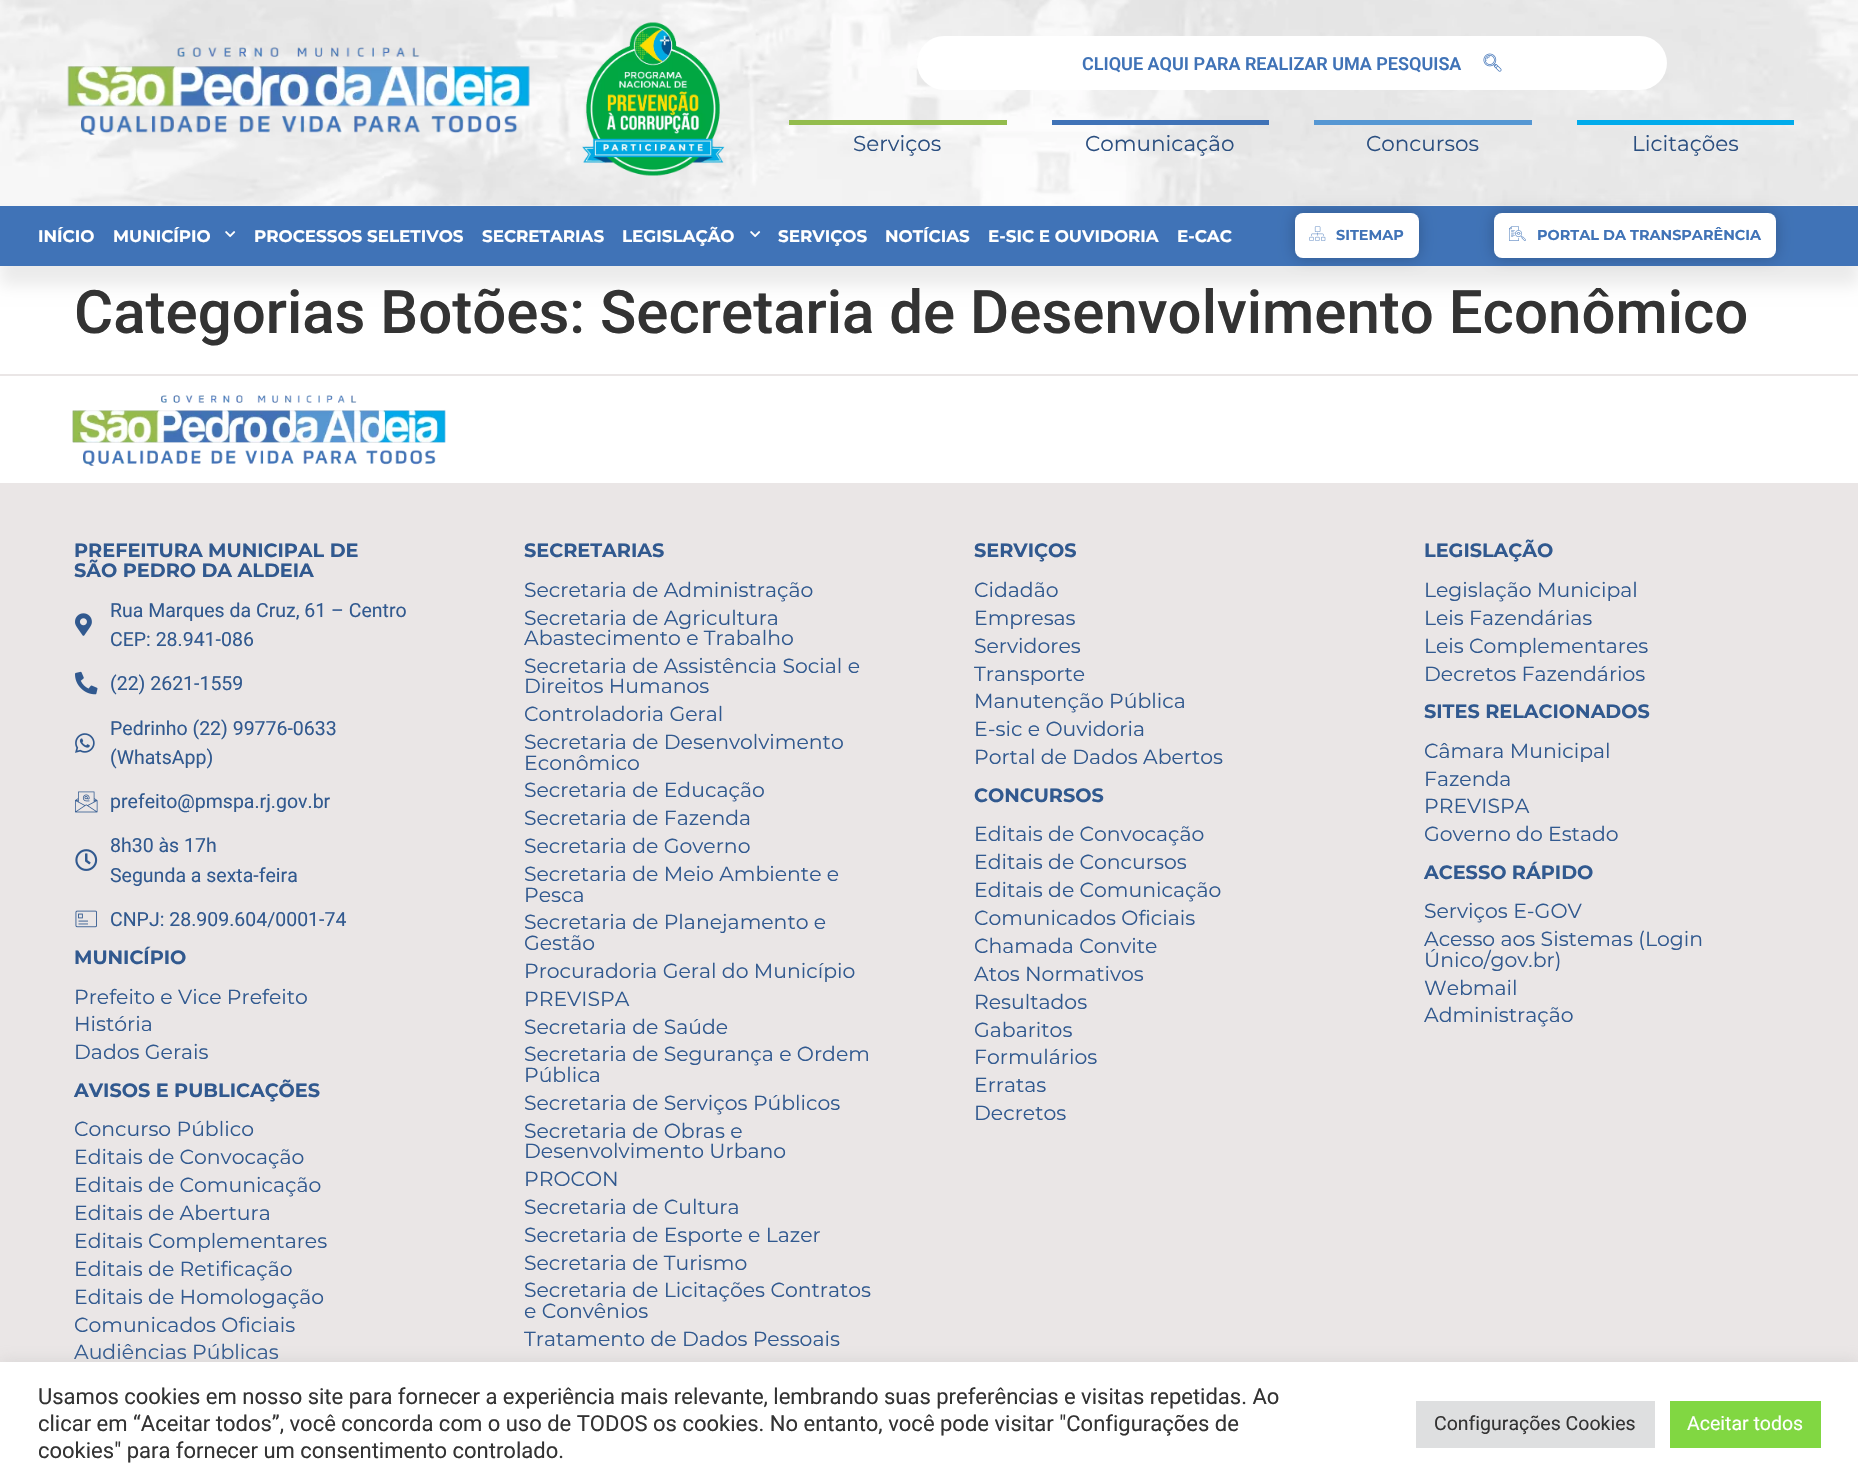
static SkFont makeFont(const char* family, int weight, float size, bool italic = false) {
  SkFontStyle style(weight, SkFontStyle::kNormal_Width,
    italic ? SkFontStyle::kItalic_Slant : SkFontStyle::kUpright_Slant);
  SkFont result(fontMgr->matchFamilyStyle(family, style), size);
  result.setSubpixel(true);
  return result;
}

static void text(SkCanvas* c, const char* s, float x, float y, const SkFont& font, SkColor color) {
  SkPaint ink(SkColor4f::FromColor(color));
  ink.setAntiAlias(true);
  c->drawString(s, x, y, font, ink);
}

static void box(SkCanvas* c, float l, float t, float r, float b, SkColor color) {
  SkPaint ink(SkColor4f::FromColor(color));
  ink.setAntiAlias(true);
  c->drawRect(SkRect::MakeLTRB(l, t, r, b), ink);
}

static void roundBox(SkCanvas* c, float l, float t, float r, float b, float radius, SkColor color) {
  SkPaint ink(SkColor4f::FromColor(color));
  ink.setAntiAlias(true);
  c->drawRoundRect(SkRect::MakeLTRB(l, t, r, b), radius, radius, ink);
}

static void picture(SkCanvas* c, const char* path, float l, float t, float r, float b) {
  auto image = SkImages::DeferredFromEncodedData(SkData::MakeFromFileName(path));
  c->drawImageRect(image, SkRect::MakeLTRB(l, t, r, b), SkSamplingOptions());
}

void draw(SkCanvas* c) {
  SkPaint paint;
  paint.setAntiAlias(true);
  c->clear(0xffffffff);
  box(c, 0, 0, 1858, 206, 0xfff9f9f9);
  picture(c, "img_01.png", 0, 0, 1858, 206);
  picture(c, "img_02.png", 67, 47, 530, 135);
  picture(c, "img_03.png", 582, 22, 725, 176);
  roundBox(c, 917, 36, 1667, 90, 27, 0xffffffff);
  SkFont face1 = makeFont("Roboto", 600, 18);
  text(c, "CLIQUE AQUI PARA REALIZAR UMA PESQUISA", 1082, 70, face1, 0xff4073b7);
  picture(c, "img_04.png", 1483, 53, 1502, 72);
  box(c, 789, 120, 1007, 125, 0xff93bc4d);
  SkFont face2 = makeFont("Montserrat", 400, 21.5f);
  text(c, "Serviços", 853, 151, face2, 0xff2b4f80);
  box(c, 1052, 120, 1269, 125, 0xff4073b7);
  text(c, "Comunicação", 1085, 151, face2, 0xff2b4f80);
  box(c, 1314, 120, 1532, 125, 0xff5597d3);
  text(c, "Concursos", 1366, 151, face2, 0xff2b4f80);
  box(c, 1577, 120, 1794, 125, 0xff01abeb);
  text(c, "Licitações", 1632, 151, face2, 0xff2b4f80);
  paint.setColor(0x14000000);
  paint.setMaskFilter(SkMaskFilter::MakeBlur(kNormal_SkBlurStyle, 7.5f));
  c->drawRect(SkRect::MakeLTRB(0, 225, 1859, 285), paint);
  paint.setMaskFilter(nullptr);
  box(c, 0, 206, 1858, 266, 0xff4073b7);
  SkFont face3 = makeFont("Montserrat", 700, 16.75f);
  text(c, "INÍCIO", 38, 242, face3, 0xffffffff);
  text(c, "MUNICÍPIO", 113, 242, face3, 0xffffffff);
  picture(c, "img_05.png", 225, 231, 236, 238);
  text(c, "PROCESSOS SELETIVOS", 254, 242, face3, 0xffffffff);
  text(c, "SECRETARIAS", 482, 242, face3, 0xffffffff);
  text(c, "LEGISLAÇÃO", 622, 242, face3, 0xffffffff);
  picture(c, "img_05.png", 750, 231, 761, 238);
  text(c, "SERVIÇOS", 778, 242, face3, 0xffffffff);
  text(c, "NOTÍCIAS", 885, 242, face3, 0xffffffff);
  text(c, "E-SIC E OUVIDORIA", 988, 242, face3, 0xffffffff);
  text(c, "E-CAC", 1177, 242, face3, 0xffffffff);
  paint.setColor(0x3b000000);
  paint.setMaskFilter(SkMaskFilter::MakeBlur(kNormal_SkBlurStyle, 7.5f));
  c->drawRoundRect(SkRect::MakeLTRB(1295, 213, 1419, 258), 8, 8, paint);
  paint.setMaskFilter(nullptr);
  roundBox(c, 1295, 213, 1419, 258, 8, 0xffffffff);
  picture(c, "img_06.png", 1309, 226, 1326, 241);
  SkFont face4 = makeFont("Montserrat", 700, 14.4f);
  text(c, "SITEMAP", 1336, 240, face4, 0xff4073b7);
  paint.setMaskFilter(SkMaskFilter::MakeBlur(kNormal_SkBlurStyle, 7.5f));
  c->drawRoundRect(SkRect::MakeLTRB(1494, 213, 1776, 258), 8, 8, paint);
  paint.setMaskFilter(nullptr);
  roundBox(c, 1494, 213, 1776, 258, 8, 0xffffffff);
  picture(c, "img_07.png", 1509, 226, 1526, 241);
  text(c, "PORTAL DA TRANSPARÊNCIA", 1537, 240, face4, 0xff4073b7);
  SkFont face5 = makeFont("Roboto", 500, 60);
  text(c, "Categorias Botões: Secretaria de Desenvolvimento Econômico", 74, 333, face5, 0xff333333);
  box(c, 0, 374, 1858, 376, 0xffeae6e6);
  picture(c, "img_08.png", 72, 395, 446, 466);
  box(c, 0, 483, 1858, 1362, 0xffeae6e6);
  SkFont face6 = makeFont("Montserrat", 700, 19.25f);
  text(c, "PREFEITURA MUNICIPAL DE", 74, 557, face6, 0xff31598f);
  text(c, "SÃO PEDRO DA ALDEIA", 74, 577, face6, 0xff31598f);
  picture(c, "img_09.png", 75, 613, 92, 636);
  SkFont face7 = makeFont("Roboto", 400, 19.5f);
  text(c, "Rua Marques da Cruz, 61 – Centro", 110, 617, face7, 0xff31598f);
  text(c, "CEP: 28.941-086", 110, 646, face7, 0xff31598f);
  picture(c, "img_10.png", 75, 671, 98, 695);
  text(c, "(22) 2621-1559", 110, 690, face7, 0xff31598f);
  picture(c, "img_11.png", 75, 733, 95, 753);
  text(c, "Pedrinho (22) 99776-0633", 110, 735, face7, 0xff31598f);
  text(c, "(WhatsApp)", 110, 764, face7, 0xff31598f);
  picture(c, "img_12.png", 75, 791, 98, 813);
  text(c, "prefeito@pmspa.rj.gov.br", 110, 808, face7, 0xff31598f);
  picture(c, "img_13.png", 75, 849, 98, 871);
  text(c, "8h30 às 17h", 110, 852, face7, 0xff31598f);
  text(c, "Segunda a sexta-feira", 110, 882, face7, 0xff31598f);
  picture(c, "img_14.png", 75, 910, 97, 928);
  text(c, "CNPJ: 28.909.604/0001-74", 110, 926, face7, 0xff31598f);
  text(c, "MUNICÍPIO", 74, 964, face6, 0xff31598f);
  SkFont face8 = makeFont("Montserrat", 400, 20.4f);
  text(c, "Prefeito e Vice Prefeito", 74, 1004, face8, 0xff31598f);
  text(c, "História", 74, 1031, face8, 0xff31598f);
  text(c, "Dados Gerais", 74, 1059, face8, 0xff31598f);
  text(c, "AVISOS E PUBLICAÇÕES", 74, 1097, face6, 0xff31598f);
  text(c, "Concurso Público", 74, 1136, face8, 0xff31598f);
  text(c, "Editais de Convocação", 74, 1164, face8, 0xff31598f);
  text(c, "Editais de Comunicação", 74, 1192, face8, 0xff31598f);
  text(c, "Editais de Abertura", 74, 1220, face8, 0xff31598f);
  text(c, "Editais Complementares", 74, 1248, face8, 0xff31598f);
  text(c, "Editais de Retificação", 74, 1276, face8, 0xff31598f);
  text(c, "Editais de Homologação", 74, 1304, face8, 0xff31598f);
  text(c, "Comunicados Oficiais", 74, 1332, face8, 0xff31598f);
  text(c, "Audiências Públicas", 74, 1359, face8, 0xff31598f);
  text(c, "SECRETARIAS", 524, 557, face6, 0xff31598f);
  text(c, "Secretaria de Administração", 524, 597, face8, 0xff31598f);
  text(c, "Secretaria de Agricultura", 524, 625, face8, 0xff31598f);
  text(c, "Abastecimento e Trabalho", 524, 645, face8, 0xff31598f);
  text(c, "Secretaria de Assistência Social e", 524, 673, face8, 0xff31598f);
  text(c, "Direitos Humanos", 524, 693, face8, 0xff31598f);
  text(c, "Controladoria Geral", 524, 721, face8, 0xff31598f);
  text(c, "Secretaria de Desenvolvimento", 524, 749, face8, 0xff31598f);
  text(c, "Econômico", 524, 770, face8, 0xff31598f);
  text(c, "Secretaria de Educação", 524, 797, face8, 0xff31598f);
  text(c, "Secretaria de Fazenda", 524, 825, face8, 0xff31598f);
  text(c, "Secretaria de Governo", 524, 853, face8, 0xff31598f);
  text(c, "Secretaria de Meio Ambiente e", 524, 881, face8, 0xff31598f);
  text(c, "Pesca", 524, 902, face8, 0xff31598f);
  text(c, "Secretaria de Planejamento e", 524, 929, face8, 0xff31598f);
  text(c, "Gestão", 524, 950, face8, 0xff31598f);
  text(c, "Procuradoria Geral do Município", 524, 978, face8, 0xff31598f);
  text(c, "PREVISPA", 524, 1006, face8, 0xff31598f);
  text(c, "Secretaria de Saúde", 524, 1034, face8, 0xff31598f);
  text(c, "Secretaria de Segurança e Ordem", 524, 1061, face8, 0xff31598f);
  text(c, "Pública", 524, 1082, face8, 0xff31598f);
  text(c, "Secretaria de Serviços Públicos", 524, 1110, face8, 0xff31598f);
  text(c, "Secretaria de Obras e", 524, 1138, face8, 0xff31598f);
  text(c, "Desenvolvimento Urbano", 524, 1158, face8, 0xff31598f);
  text(c, "PROCON", 524, 1186, face8, 0xff31598f);
  text(c, "Secretaria de Cultura", 524, 1214, face8, 0xff31598f);
  text(c, "Secretaria de Esporte e Lazer", 524, 1242, face8, 0xff31598f);
  text(c, "Secretaria de Turismo", 524, 1270, face8, 0xff31598f);
  text(c, "Secretaria de Licitações Contratos", 524, 1297, face8, 0xff31598f);
  text(c, "e Convênios", 524, 1318, face8, 0xff31598f);
  text(c, "Tratamento de Dados Pessoais", 524, 1346, face8, 0xff31598f);
  text(c, "SERVIÇOS", 974, 557, face6, 0xff31598f);
  text(c, "Cidadão", 974, 597, face8, 0xff31598f);
  text(c, "Empresas", 974, 625, face8, 0xff31598f);
  text(c, "Servidores", 974, 653, face8, 0xff31598f);
  text(c, "Transporte", 974, 681, face8, 0xff31598f);
  text(c, "Manutenção Pública", 974, 708, face8, 0xff31598f);
  text(c, "E-sic e Ouvidoria", 974, 736, face8, 0xff31598f);
  text(c, "Portal de Dados Abertos", 974, 764, face8, 0xff31598f);
  text(c, "CONCURSOS", 974, 802, face6, 0xff31598f);
  text(c, "Editais de Convocação", 974, 841, face8, 0xff31598f);
  text(c, "Editais de Concursos", 974, 869, face8, 0xff31598f);
  text(c, "Editais de Comunicação", 974, 897, face8, 0xff31598f);
  text(c, "Comunicados Oficiais", 974, 925, face8, 0xff31598f);
  text(c, "Chamada Convite", 974, 953, face8, 0xff31598f);
  text(c, "Atos Normativos", 974, 981, face8, 0xff31598f);
  text(c, "Resultados", 974, 1009, face8, 0xff31598f);
  text(c, "Gabaritos", 974, 1037, face8, 0xff31598f);
  text(c, "Formulários", 974, 1064, face8, 0xff31598f);
  text(c, "Erratas", 974, 1092, face8, 0xff31598f);
  text(c, "Decretos", 974, 1120, face8, 0xff31598f);
  text(c, "LEGISLAÇÃO", 1424, 557, face6, 0xff31598f);
  text(c, "Legislação Municipal", 1424, 597, face8, 0xff31598f);
  text(c, "Leis Fazendárias", 1424, 625, face8, 0xff31598f);
  text(c, "Leis Complementares", 1424, 653, face8, 0xff31598f);
  text(c, "Decretos Fazendários", 1424, 681, face8, 0xff31598f);
  text(c, "SITES RELACIONADOS", 1424, 718, face6, 0xff31598f);
  text(c, "Câmara Municipal", 1424, 758, face8, 0xff31598f);
  text(c, "Fazenda", 1424, 786, face8, 0xff31598f);
  text(c, "PREVISPA", 1424, 813, face8, 0xff31598f);
  text(c, "Governo do Estado", 1424, 841, face8, 0xff31598f);
  text(c, "ACESSO RÁPIDO", 1424, 879, face6, 0xff31598f);
  text(c, "Serviços E-GOV", 1424, 918, face8, 0xff31598f);
  text(c, "Acesso aos Sistemas (Login", 1424, 946, face8, 0xff31598f);
  text(c, "Único/gov.br)", 1424, 967, face8, 0xff31598f);
  text(c, "Webmail", 1424, 995, face8, 0xff31598f);
  text(c, "Administração", 1424, 1022, face8, 0xff31598f);
  paint.setColor(0x4dacabab);
  paint.setMaskFilter(SkMaskFilter::MakeBlur(kNormal_SkBlurStyle, 7.5f));
  c->drawRect(SkRect::MakeLTRB(0, 1361, 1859, 1484), paint);
  paint.setMaskFilter(nullptr);
  box(c, 0, 1362, 1858, 1484, 0xffffffff);
  SkFont face9 = makeFont("Roboto", 400, 22);
  text(c, "Usamos cookies em nosso site para fornecer a experiência mais relevante, lembrando suas preferências e visitas repetidas. Ao", 38, 1404, face9, 0xff333333);
  text(c, "clicar em “Aceitar todos”, você concorda com o uso de TODOS os cookies. No entanto, você pode visitar \"Configurações de", 38, 1431, face9, 0xff333333);
  text(c, "cookies\" para fornecer um consentimento controlado.", 38, 1458, face9, 0xff333333);
  box(c, 1416, 1401, 1655, 1448, 0xffdedfe0);
  text(c, "Configurações Cookies", 1434, 1430, face7, 0xff333333);
  box(c, 1670, 1401, 1821, 1448, 0xff81d742);
  text(c, "Aceitar todos", 1687, 1430, face7, 0xffffffff);
}
